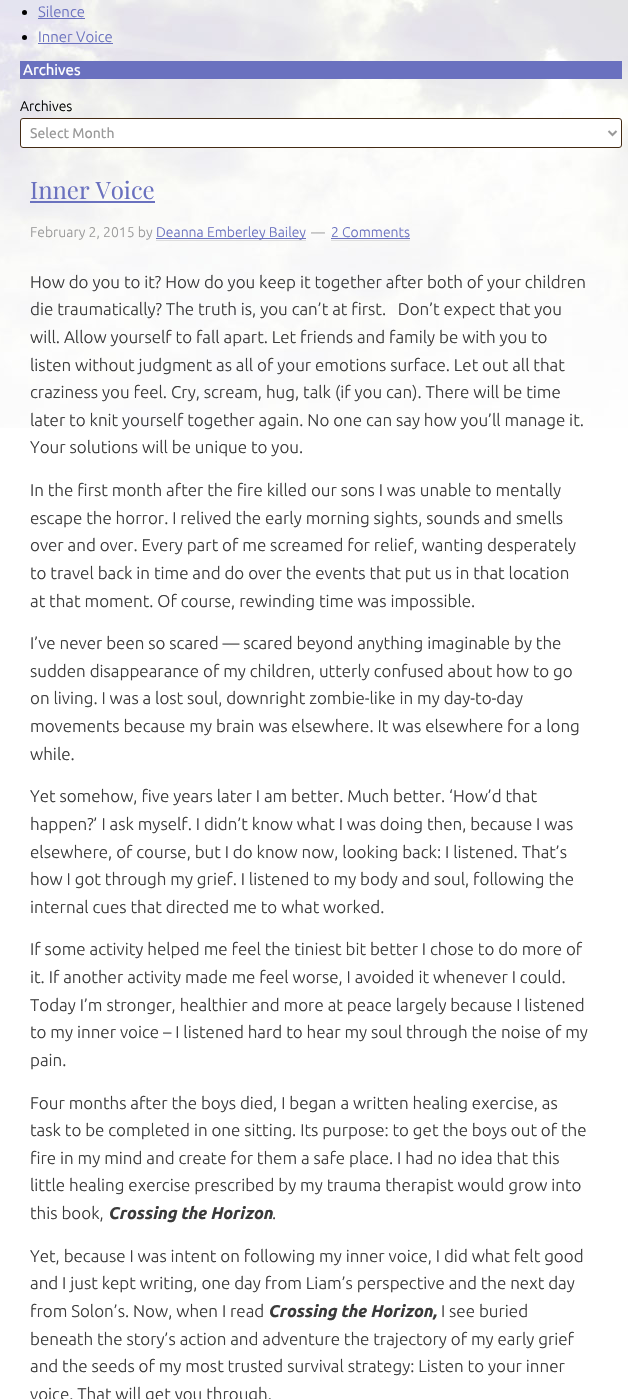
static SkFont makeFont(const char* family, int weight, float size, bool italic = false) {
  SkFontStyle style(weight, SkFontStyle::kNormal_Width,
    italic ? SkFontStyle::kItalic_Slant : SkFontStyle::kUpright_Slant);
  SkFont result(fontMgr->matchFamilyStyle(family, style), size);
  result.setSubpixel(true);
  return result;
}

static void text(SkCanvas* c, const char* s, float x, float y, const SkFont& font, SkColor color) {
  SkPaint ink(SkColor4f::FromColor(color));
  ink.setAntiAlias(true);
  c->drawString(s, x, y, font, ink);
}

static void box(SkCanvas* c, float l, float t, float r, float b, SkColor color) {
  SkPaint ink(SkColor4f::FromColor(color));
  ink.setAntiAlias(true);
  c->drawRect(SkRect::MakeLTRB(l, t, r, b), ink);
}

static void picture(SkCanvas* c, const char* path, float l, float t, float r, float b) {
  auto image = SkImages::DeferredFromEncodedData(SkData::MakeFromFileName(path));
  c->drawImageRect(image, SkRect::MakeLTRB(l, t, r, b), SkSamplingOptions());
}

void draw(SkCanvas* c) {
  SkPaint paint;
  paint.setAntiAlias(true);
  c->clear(0xffffffff);
  picture(c, "img_01.png", 0, 0, 628, 428);
  paint.setColor(0xff000000);
  c->drawCircle(24.5f, 12.5f, 2.5f, paint);
  SkFont face1 = makeFont("Ubuntu", 300, 15);
  text(c, "Silence", 38, 17, face1, 0xff6a71bf);
  box(c, 38, 18, 85, 19, 0xff6a71bf);
  c->drawCircle(24.5f, 37.5f, 2.5f, paint);
  text(c, "Inner Voice", 38, 42, face1, 0xff6a71bf);
  box(c, 38, 43, 113, 44, 0xff6a71bf);
  box(c, 20, 61, 622, 79, 0xff6a71bf);
  SkFont face2 = makeFont("Ubuntu", 400, 15);
  text(c, "Archives", 23, 75, face2, 0xffffffff);
  SkFont face3 = makeFont("Ubuntu", 300, 14);
  text(c, "Archives", 20, 111, face3, 0xff000000);
  paint.setColor(0xffffffff);
  c->drawRoundRect(SkRect::MakeLTRB(20.5f, 118.5f, 621.5f, 147.5f), 2.5f, 2.5f, paint);
  paint.setStyle(SkPaint::kStroke_Style);
  paint.setStrokeWidth(1);
  paint.setColor(0xff432a13);
  c->drawRoundRect(SkRect::MakeLTRB(20.5f, 118.5f, 621.5f, 147.5f), 2.5f, 2.5f, paint);
  paint.setStrokeWidth(2);
  paint.setColor(0xff999999);
  c->drawPath(SkPathBuilder().moveTo(608.5f, 131).lineTo(612.5f, 135).lineTo(616.5f, 131).detach(), paint);
  SkFont face4 = makeFont("Ubuntu", 400, 14);
  text(c, "Select Month", 30, 138, face4, 0xff999999);
  SkFont face5 = makeFont("Playfair Display", 400, 24);
  text(c, "Inner Voice", 30, 199, face5, 0xff6a71bf);
  box(c, 30, 201, 155, 203, 0xff6a71bf);
  text(c, "February 2, 2015 by", 30, 237, face3, 0xff999999);
  box(c, 156, 238, 306, 239, 0xff6a71bf);
  text(c, "Deanna Emberley Bailey", 156, 237, face3, 0xff6a71bf);
  box(c, 156, 240, 306, 241, 0xffdddddd);
  text(c, "—", 311, 237, face3, 0xff999999);
  text(c, "2 Comments", 331, 237, face3, 0xff6a71bf);
  box(c, 331, 240, 410, 241, 0xffdddddd);
  box(c, 331, 238, 410, 239, 0xff6a71bf);
  SkFont face6 = makeFont("Ubuntu", 300, 17);
  text(c, "How do you to it? How do you keep it together after both of your children", 30, 288, face6, 0xff3c3c3c);
  text(c, "die traumatically? The truth is, you can’t at first.   Don’t expect that you", 30, 315, face6, 0xff3c3c3c);
  text(c, "will. Allow yourself to fall apart. Let friends and family be with you to", 30, 343, face6, 0xff3c3c3c);
  text(c, "listen without judgment as all of your emotions surface. Let out all that", 30, 371, face6, 0xff3c3c3c);
  text(c, "craziness you feel. Cry, scream, hug, talk (if you can). There will be time", 30, 398, face6, 0xff3c3c3c);
  text(c, "later to knit yourself together again. No one can say how you’ll manage it.", 30, 426, face6, 0xff3c3c3c);
  text(c, "Your solutions will be unique to you.", 30, 453, face6, 0xff3c3c3c);
  text(c, "In the first month after the fire killed our sons I was unable to mentally", 30, 496, face6, 0xff3c3c3c);
  text(c, "escape the horror. I relived the early morning sights, sounds and smells", 30, 524, face6, 0xff3c3c3c);
  text(c, "over and over. Every part of me screamed for relief, wanting desperately", 30, 551, face6, 0xff3c3c3c);
  text(c, "to travel back in time and do over the events that put us in that location", 30, 579, face6, 0xff3c3c3c);
  text(c, "at that moment. Of course, rewinding time was impossible.", 30, 607, face6, 0xff3c3c3c);
  text(c, "I’ve never been so scared — scared beyond anything imaginable by the", 30, 649, face6, 0xff3c3c3c);
  text(c, "sudden disappearance of my children, utterly confused about how to go", 30, 677, face6, 0xff3c3c3c);
  text(c, "on living. I was a lost soul, downright zombie-like in my day-to-day", 30, 704, face6, 0xff3c3c3c);
  text(c, "movements because my brain was elsewhere. It was elsewhere for a long", 30, 732, face6, 0xff3c3c3c);
  text(c, "while.", 30, 760, face6, 0xff3c3c3c);
  text(c, "Yet somehow, five years later I am better. Much better. ‘How’d that", 30, 802, face6, 0xff3c3c3c);
  text(c, "happen?’ I ask myself. I didn’t know what I was doing then, because I was", 30, 830, face6, 0xff3c3c3c);
  text(c, "elsewhere, of course, but I do know now, looking back: I listened. That’s", 30, 858, face6, 0xff3c3c3c);
  text(c, "how I got through my grief. I listened to my body and soul, following the", 30, 885, face6, 0xff3c3c3c);
  text(c, "internal cues that directed me to what worked.", 30, 913, face6, 0xff3c3c3c);
  text(c, "If some activity helped me feel the tiniest bit better I chose to do more of", 30, 955, face6, 0xff3c3c3c);
  text(c, "it. If another activity made me feel worse, I avoided it whenever I could.", 30, 983, face6, 0xff3c3c3c);
  text(c, "Today I’m stronger, healthier and more at peace largely because I listened", 30, 1011, face6, 0xff3c3c3c);
  text(c, "to my inner voice – I listened hard to hear my soul through the noise of my", 30, 1038, face6, 0xff3c3c3c);
  text(c, "pain.", 30, 1066, face6, 0xff3c3c3c);
  text(c, "Four months after the boys died, I began a written healing exercise, as", 30, 1109, face6, 0xff3c3c3c);
  text(c, "task to be completed in one sitting. Its purpose: to get the boys out of the", 30, 1136, face6, 0xff3c3c3c);
  text(c, "fire in my mind and create for them a safe place. I had no idea that this", 30, 1164, face6, 0xff3c3c3c);
  text(c, "little healing exercise prescribed by my trauma therapist would grow into", 30, 1191, face6, 0xff3c3c3c);
  text(c, "this book,", 30, 1219, face6, 0xff3c3c3c);
  SkFont face7 = makeFont("Ubuntu", 700, 17, true);
  text(c, "Crossing the Horizon", 108, 1219, face7, 0xff3c3c3c);
  text(c, ".", 272, 1219, face6, 0xff3c3c3c);
  text(c, "Yet, because I was intent on following my inner voice, I did what felt good", 30, 1262, face6, 0xff3c3c3c);
  text(c, "and I just kept writing, one day from Liam’s perspective and the next day", 30, 1289, face6, 0xff3c3c3c);
  text(c, "from Solon’s. Now, when I read", 30, 1317, face6, 0xff3c3c3c);
  text(c, "Crossing the Horizon,", 268, 1317, face7, 0xff3c3c3c);
  text(c, "I see buried", 441, 1317, face6, 0xff3c3c3c);
  text(c, "beneath the story’s action and adventure the trajectory of my early grief", 30, 1345, face6, 0xff3c3c3c);
  text(c, "and the seeds of my most trusted survival strategy: Listen to your inner", 30, 1372, face6, 0xff3c3c3c);
  text(c, "voice. That will get you through.", 30, 1400, face6, 0xff3c3c3c);
}
